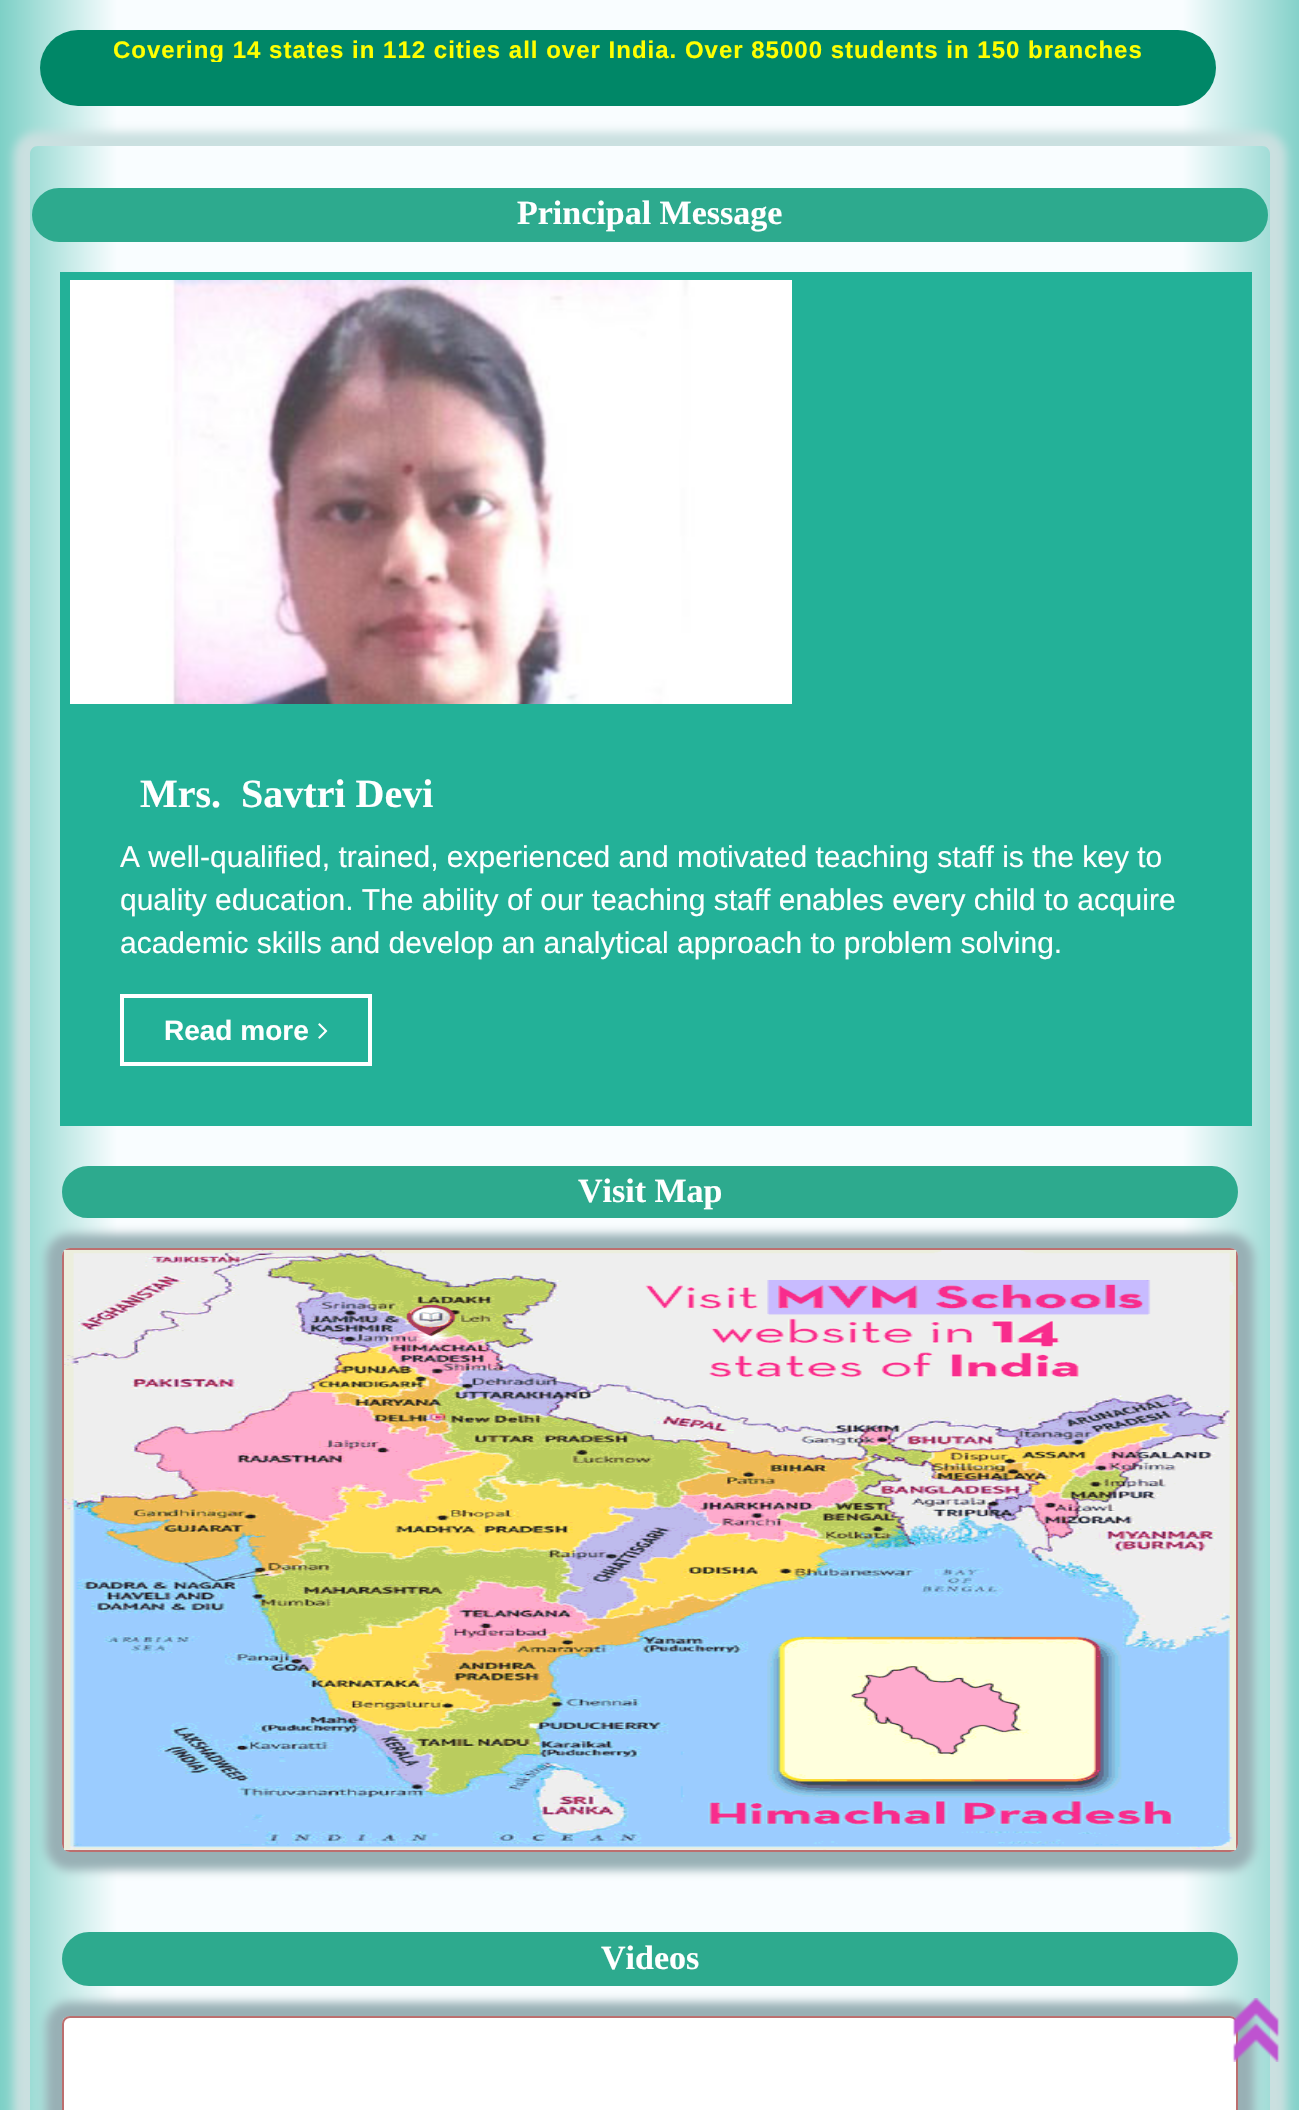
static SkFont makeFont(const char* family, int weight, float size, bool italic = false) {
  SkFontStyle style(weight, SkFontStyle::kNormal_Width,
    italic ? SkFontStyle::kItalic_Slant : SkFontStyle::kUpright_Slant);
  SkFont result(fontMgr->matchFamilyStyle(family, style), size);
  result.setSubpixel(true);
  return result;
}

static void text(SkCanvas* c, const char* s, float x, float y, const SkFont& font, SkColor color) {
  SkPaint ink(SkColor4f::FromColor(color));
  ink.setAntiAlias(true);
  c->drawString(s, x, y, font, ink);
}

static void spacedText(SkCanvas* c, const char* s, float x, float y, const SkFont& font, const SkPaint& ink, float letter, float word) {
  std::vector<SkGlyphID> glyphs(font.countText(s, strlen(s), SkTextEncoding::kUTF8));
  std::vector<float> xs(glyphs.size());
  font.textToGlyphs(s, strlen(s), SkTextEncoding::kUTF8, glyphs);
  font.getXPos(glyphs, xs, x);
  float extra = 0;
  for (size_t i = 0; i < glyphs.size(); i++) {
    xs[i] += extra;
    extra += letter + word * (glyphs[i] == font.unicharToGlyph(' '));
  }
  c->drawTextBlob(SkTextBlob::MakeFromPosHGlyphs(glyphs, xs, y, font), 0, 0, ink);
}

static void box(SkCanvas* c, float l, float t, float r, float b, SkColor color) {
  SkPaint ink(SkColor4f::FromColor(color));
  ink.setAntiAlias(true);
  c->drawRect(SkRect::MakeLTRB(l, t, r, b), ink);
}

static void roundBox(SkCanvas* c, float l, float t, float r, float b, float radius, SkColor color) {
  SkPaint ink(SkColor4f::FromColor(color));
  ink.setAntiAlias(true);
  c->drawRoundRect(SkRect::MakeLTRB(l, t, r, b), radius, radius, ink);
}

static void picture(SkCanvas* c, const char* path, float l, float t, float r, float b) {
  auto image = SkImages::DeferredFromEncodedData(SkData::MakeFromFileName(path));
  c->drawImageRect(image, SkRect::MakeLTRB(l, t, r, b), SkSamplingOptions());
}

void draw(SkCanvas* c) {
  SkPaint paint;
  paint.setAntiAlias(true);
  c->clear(0xffffffff);
  {
    const SkColor colors[] = {0xffcc0066, 0xff7dd0c6, 0xfff9fdff, 0xfff9fdff, 0xff83d1c9};
    const float stops[] = {0, 0, 0.09f, 0.91f, 1};
    const SkPoint ends[] = {{0, 1913}, {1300, 1913}};
    paint.setShader(SkGradientShader::MakeLinear(ends, colors, stops, 5, SkTileMode::kClamp));
    paint.setAlpha(255);
  }
  c->drawRect(SkRect::MakeLTRB(0, 0, 1299, 2110), paint);
  roundBox(c, 40, 30, 1216, 106, 38, 0xff008767);
  c->save();
  c->clipRect(SkRect::MakeLTRB(110, 40, 1146, 62));
  SkFont face1 = makeFont("Liberation Sans", 700, 24);
  paint.setShader(nullptr);
  paint.setColor(0xffffff00);
  spacedText(c, "Covering 14 states in 112 cities all over India. Over 85000 students in 150 branches", 113, 58, face1, paint, 1, 0);
  c->restore();
  c->save();
  c->clipPath(SkPathBuilder(SkPathFillType::kEvenOdd).moveTo(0, 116).lineTo(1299, 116).lineTo(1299, 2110).lineTo(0, 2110).close().moveTo(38, 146).lineTo(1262, 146).cubicTo(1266.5f, 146, 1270, 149.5f, 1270, 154).lineTo(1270, 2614).cubicTo(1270, 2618.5f, 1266.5f, 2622, 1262, 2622).lineTo(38, 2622).cubicTo(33.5f, 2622, 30, 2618.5f, 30, 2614).lineTo(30, 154).cubicTo(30, 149.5f, 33.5f, 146, 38, 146).close().detach(), true);
  paint.setColor(0xffcae0e0);
  paint.setMaskFilter(SkMaskFilter::MakeBlur(kNormal_SkBlurStyle, 5));
  c->drawRoundRect(SkRect::MakeLTRB(14, 132, 1286, 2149), 24, 24, paint);
  paint.setMaskFilter(nullptr);
  c->restore();
  paint.setColor(0xff2daa8e);
  c->drawRoundRect(SkRect::MakeLTRB(34, 190, 1266, 240), 25, 25, paint);
  paint.setStyle(SkPaint::kStroke_Style);
  paint.setStrokeWidth(4);
  c->drawRoundRect(SkRect::MakeLTRB(34, 190, 1266, 240), 25, 25, paint);
  SkFont face2 = makeFont("Liberation Serif", 700, 34);
  text(c, "Principal Message", 517, 224, face2, 0xffffffff);
  box(c, 60, 272, 1252, 1126, 0xff23b198);
  picture(c, "img_01.png", 70, 280, 792, 704);
  SkFont face3 = makeFont("Liberation Serif", 700, 40);
  text(c, "Mrs.  Savtri Devi", 140, 807, face3, 0xffffffff);
  SkFont face4 = makeFont("Liberation Sans", 400, 30);
  text(c, "A well-qualified, trained, experienced and motivated teaching staff is the key to", 120, 867, face4, 0xffffffff);
  text(c, "quality education. The ability of our teaching staff enables every child to acquire", 120, 910, face4, 0xffffffff);
  text(c, "academic skills and develop an analytical approach to problem solving.", 120, 953, face4, 0xffffffff);
  paint.setColor(0xffffffff);
  c->drawRect(SkRect::MakeLTRB(122, 996, 370, 1064), paint);
  SkFont face5 = makeFont("Liberation Sans", 700, 28);
  text(c, "Read more", 164, 1040, face5, 0xffffffff);
  picture(c, "img_02.png", 318, 1023, 328, 1039);
  paint.setStyle(SkPaint::kFill_Style);
  paint.setColor(0xff2daa8e);
  c->drawRoundRect(SkRect::MakeLTRB(64, 1168, 1236, 1216), 24, 24, paint);
  paint.setStyle(SkPaint::kStroke_Style);
  c->drawRoundRect(SkRect::MakeLTRB(64, 1168, 1236, 1216), 24, 24, paint);
  text(c, "Visit Map", 578, 1202, face2, 0xffffffff);
  paint.setStyle(SkPaint::kFill_Style);
  paint.setColor(0xff98b0b5);
  paint.setMaskFilter(SkMaskFilter::MakeBlur(kNormal_SkBlurStyle, 5));
  c->drawRoundRect(SkRect::MakeLTRB(46, 1234, 1254, 1870), 24, 24, paint);
  paint.setMaskFilter(nullptr);
  roundBox(c, 62, 1248, 1238, 1852, 8, 0xffffffff);
  paint.setStyle(SkPaint::kStroke_Style);
  paint.setStrokeWidth(2);
  paint.setColor(0xa3961e1e);
  c->drawRoundRect(SkRect::MakeLTRB(63, 1249, 1237, 1851), 7, 7, paint);
  picture(c, "img_03.png", 64, 1250, 1236, 1850);
  paint.setStyle(SkPaint::kFill_Style);
  paint.setColor(0xff2daa8e);
  c->drawRoundRect(SkRect::MakeLTRB(64, 1934, 1236, 1984), 25, 25, paint);
  paint.setStyle(SkPaint::kStroke_Style);
  paint.setStrokeWidth(4);
  c->drawRoundRect(SkRect::MakeLTRB(64, 1934, 1236, 1984), 25, 25, paint);
  text(c, "Videos", 601, 1969, face2, 0xffffffff);
  paint.setStyle(SkPaint::kFill_Style);
  paint.setColor(0xff98b0b5);
  paint.setMaskFilter(SkMaskFilter::MakeBlur(kNormal_SkBlurStyle, 5));
  c->drawRoundRect(SkRect::MakeLTRB(46, 2002, 1254, 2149), 24, 24, paint);
  paint.setMaskFilter(nullptr);
  roundBox(c, 62, 2016, 1238, 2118, 8, 0xffffffff);
  paint.setStyle(SkPaint::kStroke_Style);
  paint.setStrokeWidth(2);
  paint.setColor(0xa3961e1e);
  c->drawRoundRect(SkRect::MakeLTRB(63, 2017, 1237, 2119), 7, 7, paint);
  picture(c, "img_04.png", 1232, 1998, 1280, 2062);
}
